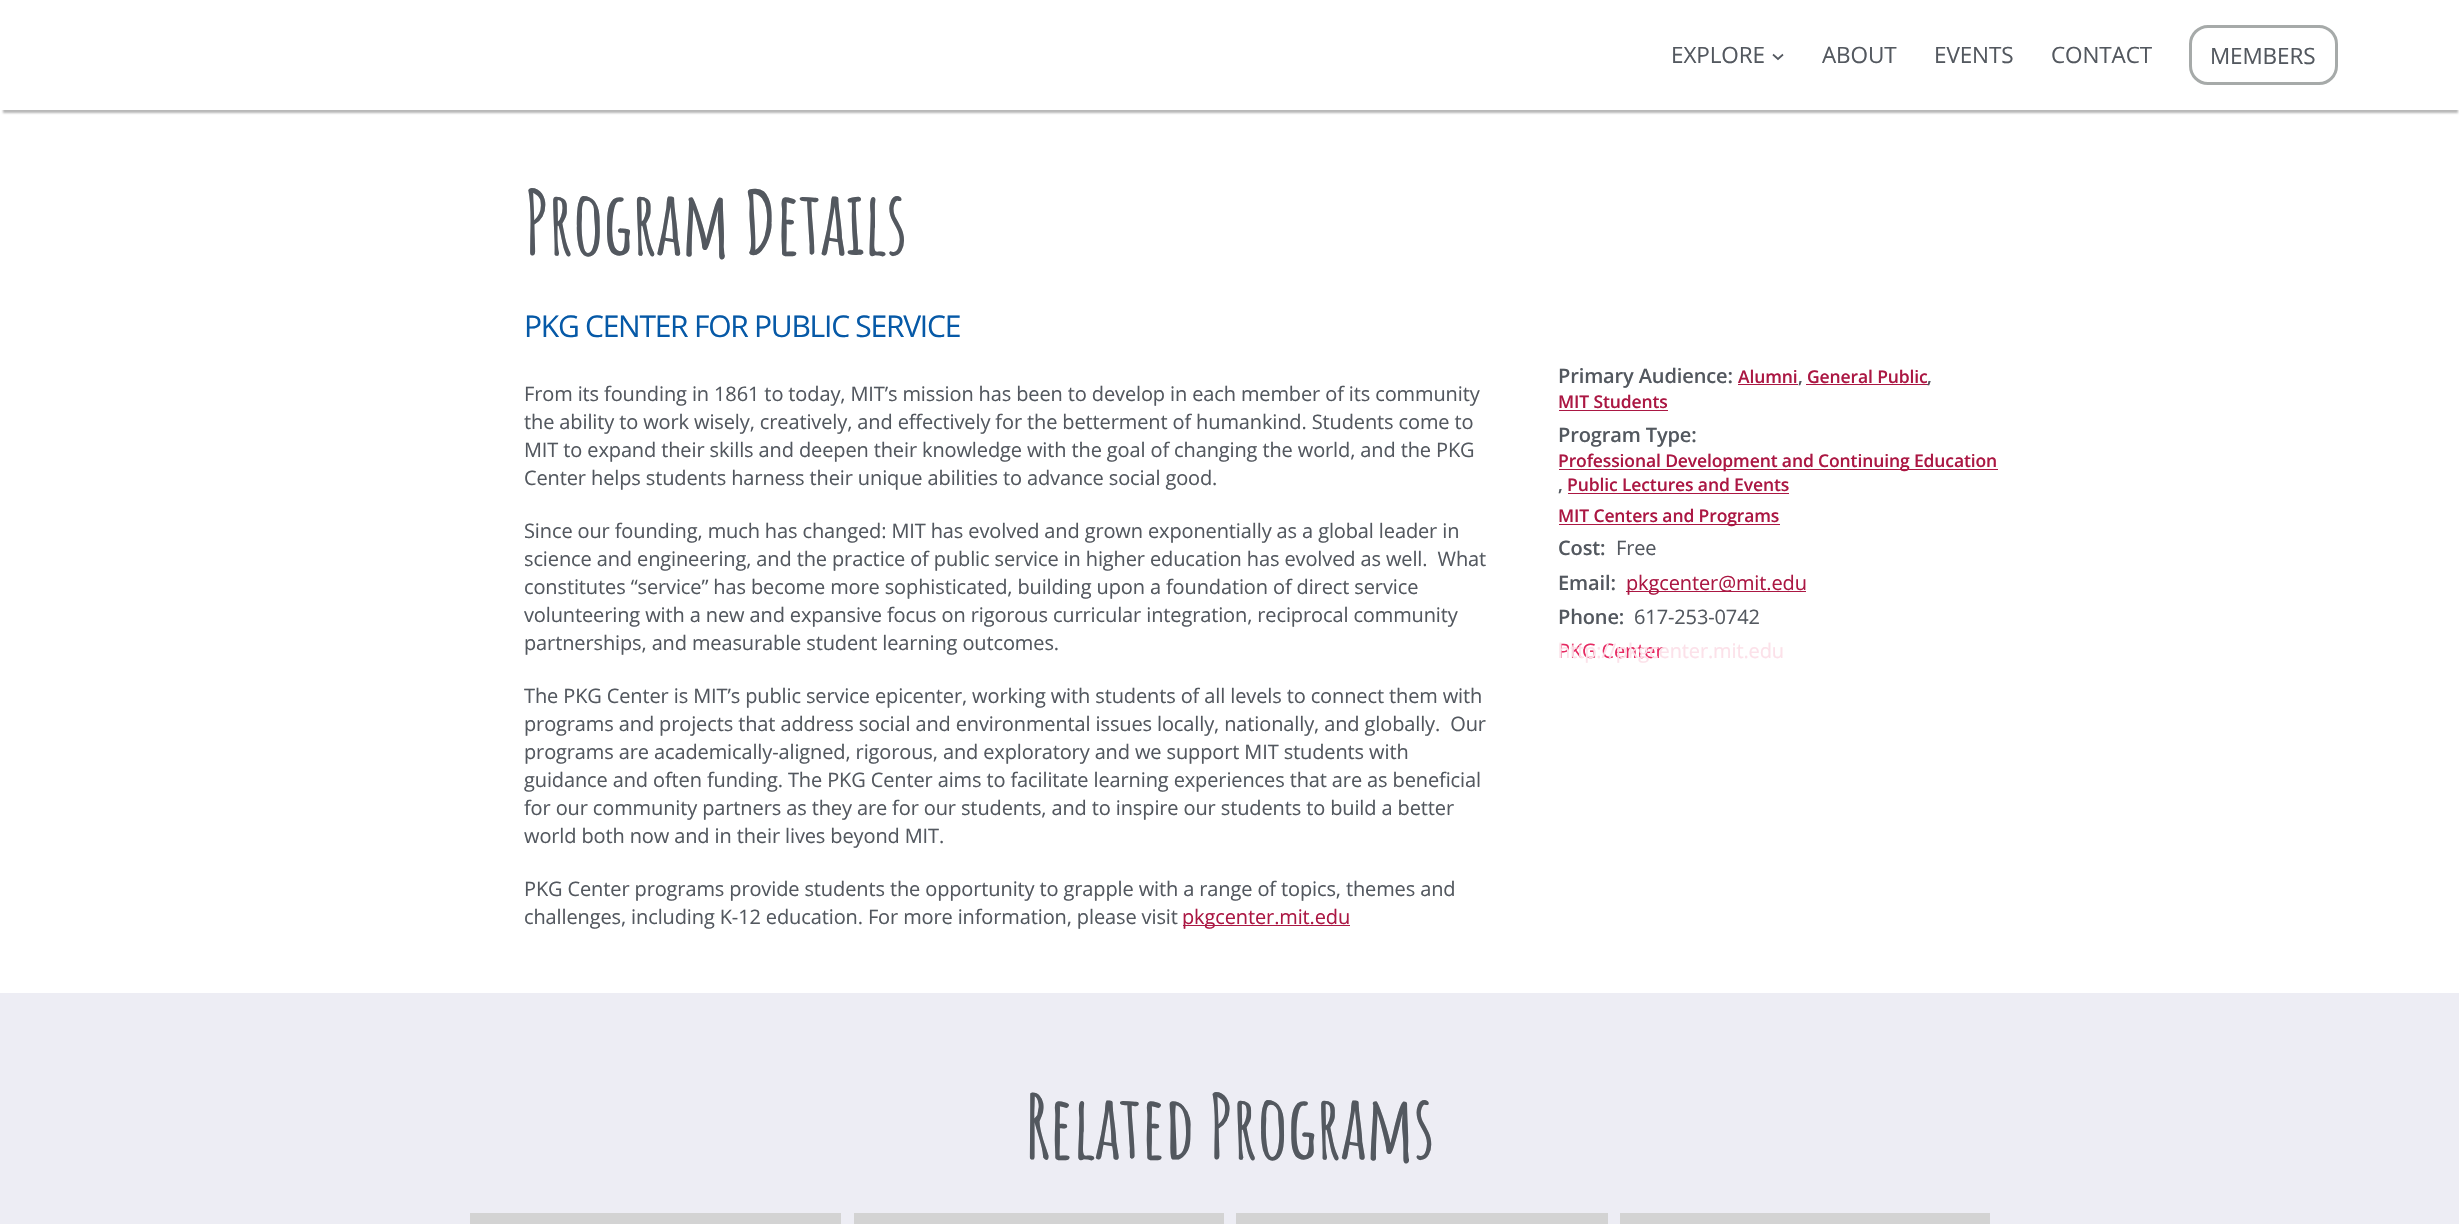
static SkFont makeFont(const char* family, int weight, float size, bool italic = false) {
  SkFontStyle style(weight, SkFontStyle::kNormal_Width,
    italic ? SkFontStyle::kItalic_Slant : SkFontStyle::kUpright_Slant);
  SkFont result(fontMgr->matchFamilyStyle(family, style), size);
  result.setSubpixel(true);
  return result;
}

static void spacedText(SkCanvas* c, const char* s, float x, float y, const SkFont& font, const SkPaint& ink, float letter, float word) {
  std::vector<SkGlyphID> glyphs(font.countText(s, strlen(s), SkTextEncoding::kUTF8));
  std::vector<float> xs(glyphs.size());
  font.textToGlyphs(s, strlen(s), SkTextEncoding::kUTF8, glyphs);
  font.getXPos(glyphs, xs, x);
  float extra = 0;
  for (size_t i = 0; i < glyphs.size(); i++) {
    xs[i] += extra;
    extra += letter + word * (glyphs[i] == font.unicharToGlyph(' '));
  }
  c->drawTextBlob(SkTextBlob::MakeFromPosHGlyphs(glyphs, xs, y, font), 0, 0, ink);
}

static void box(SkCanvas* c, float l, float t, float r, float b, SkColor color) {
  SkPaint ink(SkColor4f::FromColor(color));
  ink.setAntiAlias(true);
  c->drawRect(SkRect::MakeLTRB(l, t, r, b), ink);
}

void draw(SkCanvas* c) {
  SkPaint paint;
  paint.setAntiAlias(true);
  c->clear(0xffffffff);
  c->save();
  c->clipRect(SkRect::MakeLTRB(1, 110, 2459, 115));
  paint.setColor(0xffb8b8b8);
  paint.setMaskFilter(SkMaskFilter::MakeBlur(kNormal_SkBlurStyle, 1));
  c->drawRect(SkRect::MakeLTRB(3, 8, 2458, 113), paint);
  paint.setMaskFilter(nullptr);
  c->restore();
  SkFont face1 = makeFont("Open Sans", 400, 22.5f);
  paint.setColor(0xff53585f);
  spacedText(c, "EXPLORE", 1671, 63, face1, paint, -0.12f, 0);
  paint.setStyle(SkPaint::kStroke_Style);
  paint.setStrokeWidth(1.7f);
  c->drawPath(SkPathBuilder().moveTo(1773, 54.5f).lineTo(1778, 59).lineTo(1783, 54.5f).detach(), paint);
  paint.setStyle(SkPaint::kFill_Style);
  spacedText(c, "ABOUT", 1822, 63, face1, paint, -0.12f, 0);
  spacedText(c, "EVENTS", 1934, 63, face1, paint, -0.12f, 0);
  spacedText(c, "CONTACT", 2051, 63, face1, paint, -0.12f, 0);
  paint.setStyle(SkPaint::kStroke_Style);
  paint.setStrokeWidth(3);
  paint.setColor(0xffa6aaa9);
  c->drawRoundRect(SkRect::MakeLTRB(2190.5f, 26.5f, 2336.5f, 83.5f), 17.5f, 17.5f, paint);
  paint.setStyle(SkPaint::kFill_Style);
  paint.setColor(0xff53585f);
  spacedText(c, "MEMBERS", 2210, 64, face1, paint, -0.12f, 0);
  SkFont face2 = makeFont("Amatic SC", 700, 87.5f);
  spacedText(c, "Program Details", 524, 255, face2, paint, -1.25f, 0);
  SkFont face3 = makeFont("Open Sans", 400, 30);
  paint.setColor(0xff0659a7);
  spacedText(c, "PKG CENTER FOR PUBLIC SERVICE", 524, 337, face3, paint, -1.25f, 0);
  SkFont face4 = makeFont("Open Sans", 400, 20);
  paint.setColor(0xff53585f);
  spacedText(c, "From its founding in 1861 to today, MIT’s mission has been to develop in each member of its community", 524, 401, face4, paint, -0.12f, 0);
  spacedText(c, "the ability to work wisely, creatively, and effectively for the betterment of humankind. Students come to", 524, 429, face4, paint, -0.12f, 0);
  spacedText(c, "MIT to expand their skills and deepen their knowledge with the goal of changing the world, and the PKG", 524, 457, face4, paint, -0.12f, 0);
  spacedText(c, "Center helps students harness their unique abilities to advance social good.", 524, 485, face4, paint, -0.12f, 0);
  spacedText(c, "Since our founding, much has changed: MIT has evolved and grown exponentially as a global leader in", 524, 538, face4, paint, -0.12f, 0);
  spacedText(c, "science and engineering, and the practice of public service in higher education has evolved as well.  What", 524, 566, face4, paint, -0.12f, 0);
  spacedText(c, "constitutes “service” has become more sophisticated, building upon a foundation of direct service", 524, 594, face4, paint, -0.12f, 0);
  spacedText(c, "volunteering with a new and expansive focus on rigorous curricular integration, reciprocal community", 524, 622, face4, paint, -0.12f, 0);
  spacedText(c, "partnerships, and measurable student learning outcomes.", 524, 650, face4, paint, -0.12f, 0);
  spacedText(c, "The PKG Center is MIT’s public service epicenter, working with students of all levels to connect them with", 524, 703, face4, paint, -0.12f, 0);
  spacedText(c, "programs and projects that address social and environmental issues locally, nationally, and globally.  Our", 524, 731, face4, paint, -0.12f, 0);
  spacedText(c, "programs are academically-aligned, rigorous, and exploratory and we support MIT students with", 524, 759, face4, paint, -0.12f, 0);
  spacedText(c, "guidance and often funding. The PKG Center aims to facilitate learning experiences that are as beneficial", 524, 787, face4, paint, -0.12f, 0);
  spacedText(c, "for our community partners as they are for our students, and to inspire our students to build a better", 524, 815, face4, paint, -0.12f, 0);
  spacedText(c, "world both now and in their lives beyond MIT.", 524, 843, face4, paint, -0.12f, 0);
  spacedText(c, "PKG Center programs provide students the opportunity to grapple with a range of topics, themes and", 524, 896, face4, paint, -0.12f, 0);
  spacedText(c, "challenges, including K-12 education. For more information, please visit", 524, 924, face4, paint, -0.12f, 0);
  box(c, 1183, 925, 1350, 926, 0xffab1743);
  paint.setColor(0xffab1743);
  spacedText(c, "pkgcenter.mit.edu", 1182, 924, face4, paint, -0.12f, 0);
  SkFont face5 = makeFont("Open Sans", 600, 20);
  paint.setColor(0xff53585f);
  spacedText(c, "Primary Audience:", 1558, 383, face5, paint, -0.12f, 0);
  SkFont face6 = makeFont("Open Sans", 600, 17.5f);
  paint.setColor(0xffab1743);
  spacedText(c, "Alumni", 1738, 383, face6, paint, -0.12f, 0);
  box(c, 1738, 384, 1798, 385, 0xffab1743);
  paint.setColor(0xff53585f);
  spacedText(c, ",", 1798, 383, face6, paint, -0.12f, 0);
  paint.setColor(0xffab1743);
  spacedText(c, "General Public", 1807, 383, face6, paint, -0.12f, 0);
  box(c, 1806, 384, 1928, 385, 0xffab1743);
  paint.setColor(0xff53585f);
  spacedText(c, ",", 1927, 383, face6, paint, -0.12f, 0);
  paint.setColor(0xffab1743);
  spacedText(c, "MIT Students", 1558, 408, face6, paint, -0.12f, 0);
  box(c, 1559, 410, 1668, 411, 0xffab1743);
  paint.setColor(0xff53585f);
  spacedText(c, "Program Type:", 1558, 442, face5, paint, -0.12f, 0);
  box(c, 1559, 469, 1998, 470, 0xffab1743);
  paint.setColor(0xffab1743);
  spacedText(c, "Professional Development and Continuing Education", 1558, 467, face6, paint, -0.12f, 0);
  paint.setColor(0xff53585f);
  spacedText(c, ",", 1558, 491, face6, paint, -0.12f, 0);
  paint.setColor(0xffab1743);
  spacedText(c, "Public Lectures and Events", 1567, 491, face6, paint, -0.12f, 0);
  box(c, 1568, 493, 1789, 494, 0xffab1743);
  box(c, 1559, 524, 1780, 525, 0xffab1743);
  spacedText(c, "MIT Centers and Programs", 1558, 522, face6, paint, -0.12f, 0);
  paint.setColor(0xff53585f);
  spacedText(c, "Cost:", 1558, 555, face5, paint, -0.12f, 0);
  spacedText(c, "Free", 1616, 555, face4, paint, -0.12f, 0);
  spacedText(c, "Email:", 1558, 590, face5, paint, -0.12f, 0);
  box(c, 1626, 591, 1806, 592, 0xffab1743);
  paint.setColor(0xffab1743);
  spacedText(c, "pkgcenter@mit.edu", 1626, 590, face4, paint, -0.12f, 0);
  paint.setColor(0xff53585f);
  spacedText(c, "Phone:", 1558, 624, face5, paint, -0.12f, 0);
  spacedText(c, "617-253-0742", 1634, 624, face4, paint, -0.12f, 0);
  paint.setColor(0xffe62962);
  spacedText(c, "PKG Center", 1558, 658, face4, paint, -0.12f, 0);
  paint.setColor(0xfffce1e9);
  spacedText(c, "http://pkgcenter.mit.edu", 1558, 658, face4, paint, -0.12f, 0);
  box(c, 0, 993, 2459, 1224, 0xffededf4);
  paint.setColor(0xff53585f);
  spacedText(c, "Related Programs", 1025, 1159, face2, paint, -1.25f, 0);
  box(c, 470, 1213, 841, 1224, 0xffd3d3d3);
  box(c, 854, 1213, 1224, 1224, 0xffd3d3d3);
  box(c, 1236, 1213, 1608, 1224, 0xffd3d3d3);
  box(c, 1620, 1213, 1990, 1224, 0xffd3d3d3);
}
